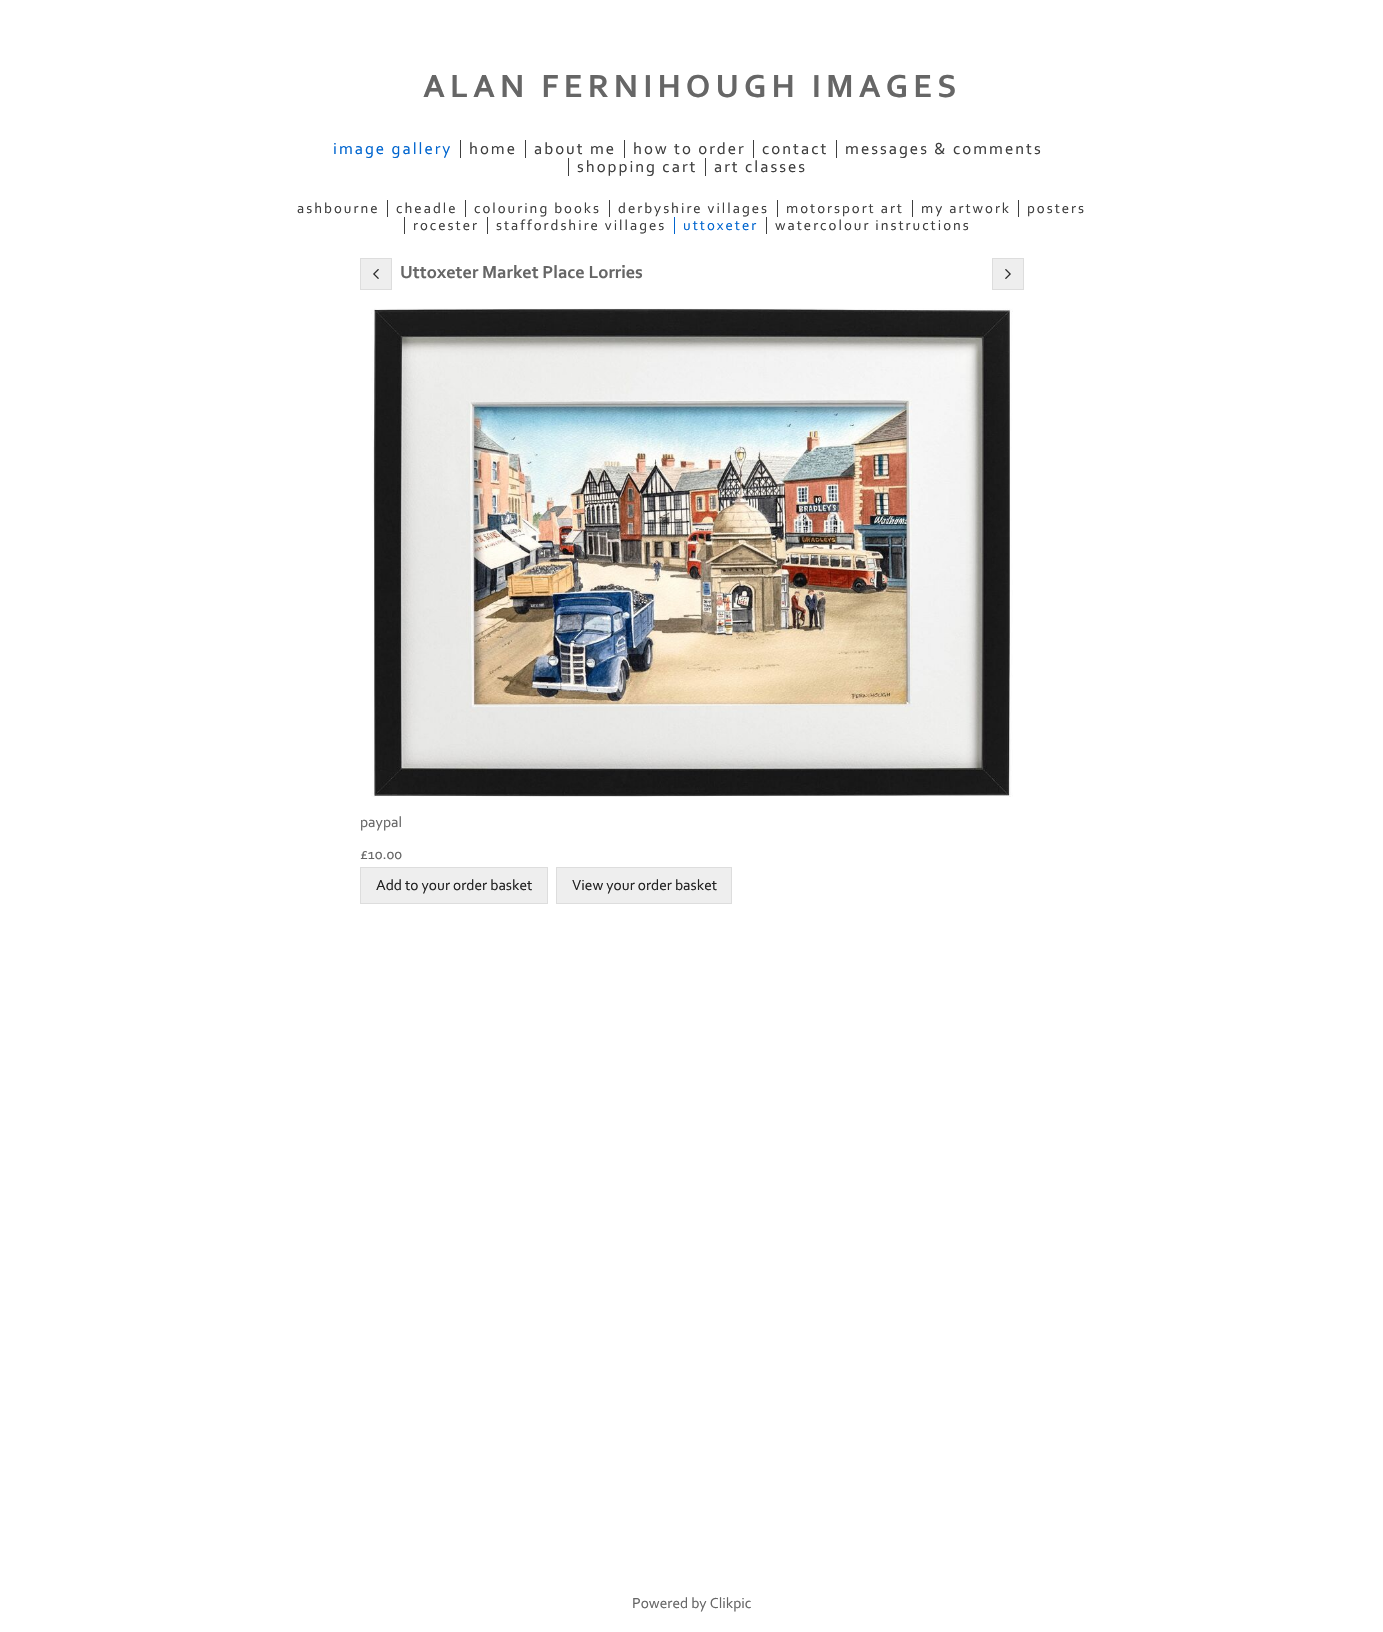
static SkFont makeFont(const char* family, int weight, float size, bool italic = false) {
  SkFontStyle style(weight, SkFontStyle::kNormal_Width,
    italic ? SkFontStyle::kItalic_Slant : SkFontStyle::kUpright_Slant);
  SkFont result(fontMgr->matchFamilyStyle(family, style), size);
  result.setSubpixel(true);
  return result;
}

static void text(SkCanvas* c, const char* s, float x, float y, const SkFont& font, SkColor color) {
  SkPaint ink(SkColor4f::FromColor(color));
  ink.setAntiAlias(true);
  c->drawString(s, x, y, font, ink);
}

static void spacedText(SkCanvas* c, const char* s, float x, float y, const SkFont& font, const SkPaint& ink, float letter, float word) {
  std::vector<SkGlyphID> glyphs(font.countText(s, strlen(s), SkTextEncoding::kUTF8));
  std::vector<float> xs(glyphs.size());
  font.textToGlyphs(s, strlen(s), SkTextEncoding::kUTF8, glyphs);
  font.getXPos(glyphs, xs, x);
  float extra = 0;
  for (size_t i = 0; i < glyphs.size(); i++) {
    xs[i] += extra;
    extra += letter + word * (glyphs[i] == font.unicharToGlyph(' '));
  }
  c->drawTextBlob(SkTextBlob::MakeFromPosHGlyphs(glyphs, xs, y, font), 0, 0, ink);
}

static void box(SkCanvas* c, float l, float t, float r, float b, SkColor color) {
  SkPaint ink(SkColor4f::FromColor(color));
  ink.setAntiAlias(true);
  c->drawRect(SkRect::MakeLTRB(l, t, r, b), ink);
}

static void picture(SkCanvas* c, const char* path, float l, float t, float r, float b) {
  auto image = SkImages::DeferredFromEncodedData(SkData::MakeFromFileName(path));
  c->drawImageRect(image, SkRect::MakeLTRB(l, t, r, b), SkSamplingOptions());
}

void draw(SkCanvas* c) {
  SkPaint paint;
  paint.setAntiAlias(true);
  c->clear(0xffffffff);
  SkFont face1 = makeFont("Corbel", 700, 33.5f);
  paint.setColor(0xff666666);
  spacedText(c, "ALAN FERNIHOUGH IMAGES", 423, 97, face1, paint, 5, 0);
  SkFont face2 = makeFont("Corbel", 400, 16.75f);
  paint.setColor(0xff0065cf);
  spacedText(c, "image gallery", 333, 154, face2, paint, 2, 0);
  box(c, 460, 140, 461, 158, 0xff3f3f3f);
  paint.setColor(0xff3f3f3f);
  spacedText(c, "home", 469, 154, face2, paint, 2, 0);
  box(c, 525, 140, 526, 158, 0xff3f3f3f);
  spacedText(c, "about me", 534, 154, face2, paint, 2, 0);
  box(c, 624, 140, 625, 158, 0xff3f3f3f);
  spacedText(c, "how to order", 633, 154, face2, paint, 2, 0);
  box(c, 753, 140, 754, 158, 0xff3f3f3f);
  spacedText(c, "contact", 762, 154, face2, paint, 2, 0);
  box(c, 836, 140, 837, 158, 0xff3f3f3f);
  spacedText(c, "messages & comments", 845, 154, face2, paint, 2, 0);
  box(c, 568, 158, 569, 176, 0xff3f3f3f);
  spacedText(c, "shopping cart", 577, 172, face2, paint, 2, 0);
  box(c, 705, 158, 706, 176, 0xff3f3f3f);
  spacedText(c, "art classes", 714, 172, face2, paint, 2, 0);
  SkFont face3 = makeFont("Corbel", 400, 14.75f);
  spacedText(c, "ashbourne", 297, 213, face3, paint, 2, 0);
  box(c, 387, 200, 388, 217, 0xff3f3f3f);
  spacedText(c, "cheadle", 396, 213, face3, paint, 2, 0);
  box(c, 465, 200, 466, 217, 0xff3f3f3f);
  spacedText(c, "colouring books", 474, 213, face3, paint, 2, 0);
  box(c, 609, 200, 610, 217, 0xff3f3f3f);
  spacedText(c, "derbyshire villages", 618, 213, face3, paint, 2, 0);
  box(c, 777, 200, 778, 217, 0xff3f3f3f);
  spacedText(c, "motorsport art", 786, 213, face3, paint, 2, 0);
  box(c, 912, 200, 913, 217, 0xff3f3f3f);
  spacedText(c, "my artwork", 921, 213, face3, paint, 2, 0);
  box(c, 1018, 200, 1019, 217, 0xff3f3f3f);
  spacedText(c, "posters", 1027, 213, face3, paint, 2, 0);
  box(c, 404, 217, 405, 234, 0xff3f3f3f);
  spacedText(c, "rocester", 413, 230, face3, paint, 2, 0);
  box(c, 487, 217, 488, 234, 0xff3f3f3f);
  spacedText(c, "staffordshire villages", 496, 230, face3, paint, 2, 0);
  box(c, 674, 217, 675, 234, 0xff0065cf);
  paint.setColor(0xff0065cf);
  spacedText(c, "uttoxeter", 683, 230, face3, paint, 2, 0);
  box(c, 766, 217, 767, 234, 0xff3f3f3f);
  paint.setColor(0xff3f3f3f);
  spacedText(c, "watercolour instructions", 775, 230, face3, paint, 2, 0);
  paint.setColor(0xffeeeeee);
  c->drawRect(SkRect::MakeLTRB(360.5f, 258.5f, 391.5f, 289.5f), paint);
  paint.setStyle(SkPaint::kStroke_Style);
  paint.setStrokeWidth(1);
  paint.setColor(0xffdddddd);
  c->drawRect(SkRect::MakeLTRB(360.5f, 258.5f, 391.5f, 289.5f), paint);
  picture(c, "img_01.png", 373, 269, 379, 279);
  paint.setStyle(SkPaint::kFill_Style);
  paint.setColor(0xffeeeeee);
  c->drawRect(SkRect::MakeLTRB(992.5f, 258.5f, 1023.5f, 289.5f), paint);
  paint.setStyle(SkPaint::kStroke_Style);
  paint.setColor(0xffdddddd);
  c->drawRect(SkRect::MakeLTRB(992.5f, 258.5f, 1023.5f, 289.5f), paint);
  picture(c, "img_02.png", 1005, 269, 1011, 279);
  SkFont face4 = makeFont("Corbel", 700, 18.25f);
  text(c, "Uttoxeter Market Place Lorries", 400, 278, face4, 0xff666666);
  picture(c, "img_03.png", 371, 308, 1013, 797);
  SkFont face5 = makeFont("Corbel", 400, 15.25f);
  text(c, "paypal", 360, 827, face5, 0xff666666);
  text(c, "£10.00", 360, 859, face5, 0xff666666);
  paint.setStyle(SkPaint::kFill_Style);
  paint.setColor(0xffeeeeee);
  c->drawRect(SkRect::MakeLTRB(360.5f, 867.5f, 547.5f, 903.5f), paint);
  paint.setStyle(SkPaint::kStroke_Style);
  paint.setColor(0xffdddddd);
  c->drawRect(SkRect::MakeLTRB(360.5f, 867.5f, 547.5f, 903.5f), paint);
  text(c, "Add to your order basket", 376, 890, face5, 0xff222222);
  paint.setStyle(SkPaint::kFill_Style);
  paint.setColor(0xffeeeeee);
  c->drawRect(SkRect::MakeLTRB(556.5f, 867.5f, 731.5f, 903.5f), paint);
  paint.setStyle(SkPaint::kStroke_Style);
  paint.setColor(0xffdddddd);
  c->drawRect(SkRect::MakeLTRB(556.5f, 867.5f, 731.5f, 903.5f), paint);
  text(c, "View your order basket", 572, 890, face5, 0xff222222);
  text(c, "Powered by Clikpic", 632, 1608, face5, 0xff666666);
}
